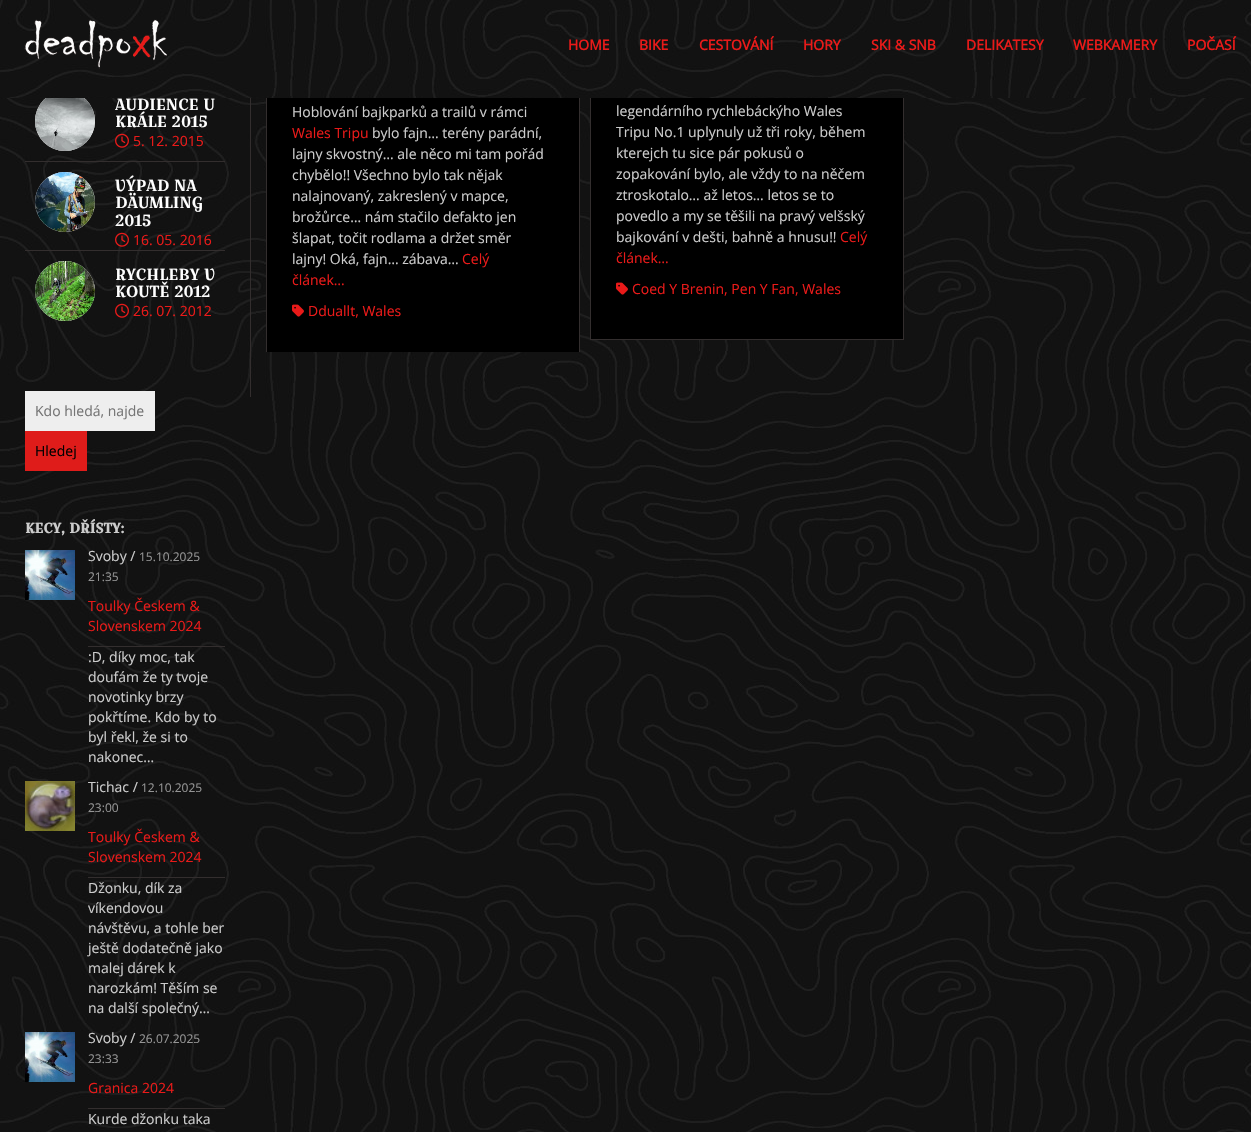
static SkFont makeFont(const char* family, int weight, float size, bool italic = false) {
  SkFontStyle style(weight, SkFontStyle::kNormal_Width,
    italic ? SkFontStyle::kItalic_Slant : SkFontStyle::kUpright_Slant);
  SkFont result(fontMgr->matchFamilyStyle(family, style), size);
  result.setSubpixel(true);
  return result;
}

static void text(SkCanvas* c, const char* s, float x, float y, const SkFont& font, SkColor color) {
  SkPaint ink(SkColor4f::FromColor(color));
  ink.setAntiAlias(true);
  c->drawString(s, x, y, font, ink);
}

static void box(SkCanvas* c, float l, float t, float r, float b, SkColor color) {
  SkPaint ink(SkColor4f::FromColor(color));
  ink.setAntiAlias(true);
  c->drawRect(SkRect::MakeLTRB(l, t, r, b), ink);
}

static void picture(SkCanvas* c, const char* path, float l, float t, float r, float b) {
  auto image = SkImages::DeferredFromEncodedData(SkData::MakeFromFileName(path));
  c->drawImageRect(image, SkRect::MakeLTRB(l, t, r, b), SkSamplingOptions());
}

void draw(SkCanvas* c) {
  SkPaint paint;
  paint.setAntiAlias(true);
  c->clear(0xffffffff);
  picture(c, "img_01.png", 0, 783, 1251, 1132);
  picture(c, "img_02.png", 0, 98, 1251, 783);
  paint.setColor(0xffffffff);
  c->drawCircle(65, 121, 30, paint);
  box(c, 267, 98, 579, 352, 0xff000000);
  c->save();
  c->clipRect(SkRect::MakeLTRB(256, 0, 1251, 352));
  paint.setStyle(SkPaint::kStroke_Style);
  paint.setStrokeWidth(1);
  paint.setColor(0xff332e2e);
  c->drawRect(SkRect::MakeLTRB(266.5f, -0.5f, 579.5f, 361.5f), paint);
  c->restore();
  box(c, 591, 98, 903, 339, 0xff000000);
  c->drawRect(SkRect::MakeLTRB(590.5f, -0.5f, 903.5f, 339.5f), paint);
  picture(c, "img_03.png", 0, 0, 1251, 98);
  picture(c, "img_04.png", 24, 19, 167, 69);
  SkFont face1 = makeFont("Open Sans", 700, 14);
  text(c, "HOME", 568, 50, face1, 0xffe91a19);
  text(c, "BIKE", 639, 50, face1, 0xffe91a19);
  text(c, "CESTOVÁNÍ", 699, 50, face1, 0xffe91a19);
  text(c, "HORY", 803, 50, face1, 0xffe91a19);
  text(c, "SKI & SNB", 871, 50, face1, 0xffe91a19);
  text(c, "DELIKATESY", 966, 50, face1, 0xffe91a19);
  text(c, "WEBKAMERY", 1073, 50, face1, 0xffe91a19);
  text(c, "POČASÍ", 1187, 50, face1, 0xffe91a19);
  box(c, 25, 161, 225, 162, 0xff332e2e);
  picture(c, "img_05.png", 35, 98, 95, 151);
  SkFont face2 = makeFont("Croissant One", 400, 16);
  text(c, "AUDIENCE U", 115, 110, face2, 0xffffffff);
  text(c, "KRÁLE 2015", 115, 127, face2, 0xffffffff);
  picture(c, "img_06.png", 115, 133, 129, 148);
  SkFont face3 = makeFont("Open Sans", 400, 14);
  text(c, "5. 12. 2015", 133, 146, face3, 0xffe91a19);
  box(c, 25, 250, 225, 251, 0xff332e2e);
  paint.setStyle(SkPaint::kFill_Style);
  paint.setColor(0xffffffff);
  c->drawCircle(65, 202, 30, paint);
  picture(c, "img_07.png", 35, 172, 95, 232);
  text(c, "VÝPAD NA", 115, 191, face2, 0xffffffff);
  text(c, "DÄUMLING", 115, 208, face2, 0xffffffff);
  text(c, "2015", 115, 226, face2, 0xffffffff);
  picture(c, "img_08.png", 115, 232, 129, 247);
  text(c, "16. 05. 2016", 133, 245, face3, 0xffe91a19);
  c->drawCircle(65, 291, 30, paint);
  picture(c, "img_09.png", 35, 261, 95, 321);
  text(c, "RYCHLEBY V", 115, 280, face2, 0xffffffff);
  text(c, "KOUTĚ 2012", 115, 297, face2, 0xffffffff);
  picture(c, "img_10.png", 115, 303, 129, 318);
  text(c, "26. 07. 2012", 133, 316, face3, 0xffe91a19);
  box(c, 25, 391, 155, 431, 0xffeeeeee);
  text(c, "Kdo hledá, najde", 35, 416, face3, 0xff757575);
  box(c, 25, 431, 87, 471, 0xffdf1c1a);
  text(c, "Hledej", 35, 456, face3, 0xff000000);
  SkFont face4 = makeFont("Croissant One", 700, 14);
  text(c, "KECY, DŘÍSTY:", 25, 533, face4, 0xffcccccc);
  picture(c, "img_11.png", 25, 550, 75, 600);
  text(c, "Svoby /", 88, 561, face3, 0xffcccccc);
  SkFont face5 = makeFont("Open Sans", 400, 12);
  text(c, "15.10.2025", 139, 561, face5, 0xff959595);
  text(c, "21:35", 88, 581, face5, 0xff959595);
  box(c, 88, 646, 225, 647, 0xff332e2e);
  text(c, "Toulky Českem &", 88, 611, face3, 0xffe91a19);
  text(c, "Slovenskem 2024", 88, 631, face3, 0xffe91a19);
  text(c, ":D, díky moc, tak", 88, 662, face3, 0xffcccccc);
  text(c, "doufám že ty tvoje", 88, 682, face3, 0xffcccccc);
  text(c, "novotinky brzy", 88, 702, face3, 0xffcccccc);
  text(c, "pokřtíme. Kdo by to", 88, 722, face3, 0xffcccccc);
  text(c, "byl řekl, že si to", 88, 742, face3, 0xffcccccc);
  text(c, "nakonec…", 88, 762, face3, 0xffcccccc);
  picture(c, "img_12.png", 25, 781, 75, 831);
  text(c, "Tichac /", 88, 792, face3, 0xffcccccc);
  text(c, "12.10.2025", 141, 792, face5, 0xff959595);
  text(c, "23:00", 88, 812, face5, 0xff959595);
  box(c, 88, 877, 225, 878, 0xff332e2e);
  text(c, "Toulky Českem &", 88, 842, face3, 0xffe91a19);
  text(c, "Slovenskem 2024", 88, 862, face3, 0xffe91a19);
  text(c, "Džonku, dík za", 88, 893, face3, 0xffcccccc);
  text(c, "víkendovou", 88, 913, face3, 0xffcccccc);
  text(c, "návštěvu, a tohle ber", 88, 933, face3, 0xffcccccc);
  text(c, "ještě dodatečně jako", 88, 953, face3, 0xffcccccc);
  text(c, "malej dárek k", 88, 973, face3, 0xffcccccc);
  text(c, "narozkám! Těším se", 88, 993, face3, 0xffcccccc);
  text(c, "na další společný…", 88, 1013, face3, 0xffcccccc);
  picture(c, "img_11.png", 25, 1032, 75, 1082);
  text(c, "Svoby /", 88, 1043, face3, 0xffcccccc);
  text(c, "26.07.2025", 139, 1043, face5, 0xff959595);
  text(c, "23:33", 88, 1063, face5, 0xff959595);
  box(c, 88, 1108, 225, 1109, 0xff332e2e);
  text(c, "Granica 2024", 88, 1093, face3, 0xffe91a19);
  text(c, "Kurde džonku taka", 88, 1124, face3, 0xffcccccc);
  box(c, 250, 98, 251, 397, 0xff332e2e);
  text(c, "Hoblování bajkparků a trailů v rámci", 292, 117, face3, 0xffcccccc);
  text(c, "Wales Tripu", 292, 138, face3, 0xffe91a19);
  text(c, "bylo fajn… terény parádní,", 372, 138, face3, 0xffcccccc);
  text(c, "lajny skvostný… ale něco mi tam pořád", 292, 159, face3, 0xffcccccc);
  text(c, "chybělo!! Všechno bylo tak nějak", 292, 180, face3, 0xffcccccc);
  text(c, "nalajnovaný, zakreslený v mapce,", 292, 201, face3, 0xffcccccc);
  text(c, "brožůrce… nám stačilo defakto jen", 292, 222, face3, 0xffcccccc);
  text(c, "šlapat, točit rodlama a držet směr", 292, 243, face3, 0xffcccccc);
  text(c, "lajny! Oká, fajn… zábava…", 292, 264, face3, 0xffcccccc);
  text(c, "Celý", 462, 264, face3, 0xffe91a19);
  text(c, "článek…", 292, 285, face3, 0xffe91a19);
  picture(c, "img_13.png", 292, 304, 304, 317);
  text(c, "Dduallt, Wales", 308, 316, face3, 0xffe91a19);
  text(c, "legendárního rychlebáckýho Wales", 616, 116, face3, 0xffcccccc);
  text(c, "Tripu No.1 uplynuly už tři roky, během", 616, 137, face3, 0xffcccccc);
  text(c, "kterejch tu sice pár pokusů o", 616, 158, face3, 0xffcccccc);
  text(c, "zopakování bylo, ale vždy to na něčem", 616, 179, face3, 0xffcccccc);
  text(c, "ztroskotalo… až letos… letos se to", 616, 200, face3, 0xffcccccc);
  text(c, "povedlo a my se těšili na pravý velšský", 616, 221, face3, 0xffcccccc);
  text(c, "bajkování v dešti, bahně a hnusu!!", 616, 242, face3, 0xffcccccc);
  text(c, "Celý", 840, 242, face3, 0xffe91a19);
  text(c, "článek…", 616, 263, face3, 0xffe91a19);
  picture(c, "img_13.png", 616, 282, 628, 295);
  text(c, "Coed Y Brenin, Pen Y Fan, Wales", 632, 294, face3, 0xffe91a19);
}
